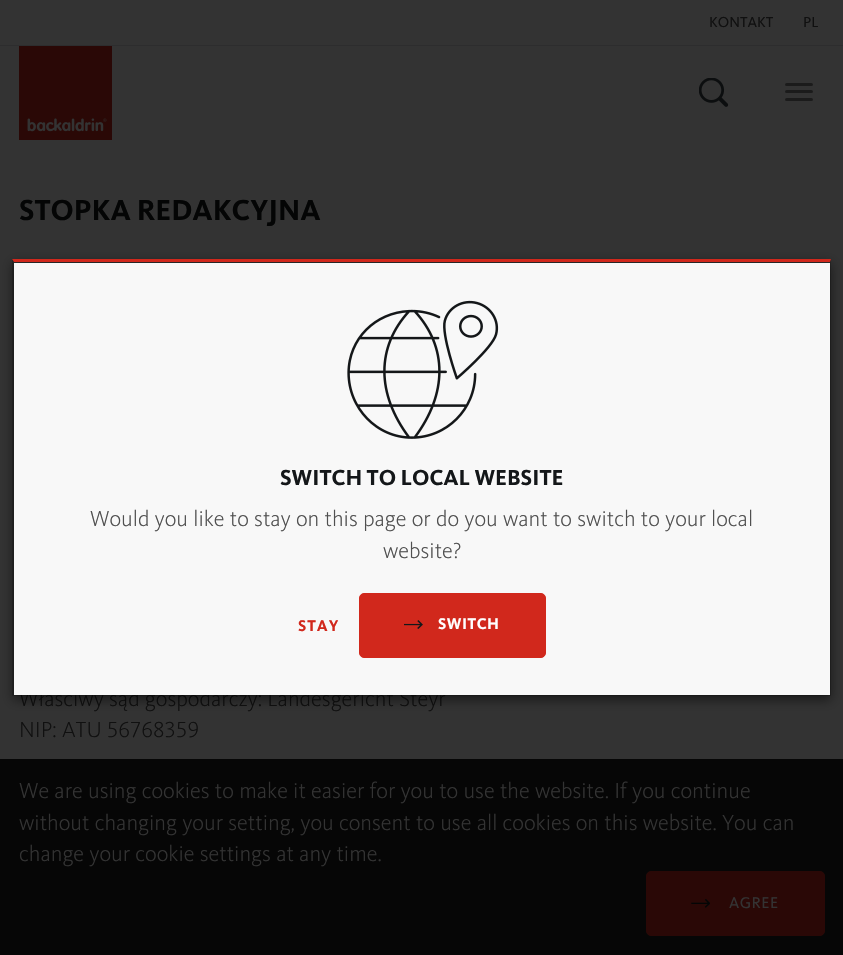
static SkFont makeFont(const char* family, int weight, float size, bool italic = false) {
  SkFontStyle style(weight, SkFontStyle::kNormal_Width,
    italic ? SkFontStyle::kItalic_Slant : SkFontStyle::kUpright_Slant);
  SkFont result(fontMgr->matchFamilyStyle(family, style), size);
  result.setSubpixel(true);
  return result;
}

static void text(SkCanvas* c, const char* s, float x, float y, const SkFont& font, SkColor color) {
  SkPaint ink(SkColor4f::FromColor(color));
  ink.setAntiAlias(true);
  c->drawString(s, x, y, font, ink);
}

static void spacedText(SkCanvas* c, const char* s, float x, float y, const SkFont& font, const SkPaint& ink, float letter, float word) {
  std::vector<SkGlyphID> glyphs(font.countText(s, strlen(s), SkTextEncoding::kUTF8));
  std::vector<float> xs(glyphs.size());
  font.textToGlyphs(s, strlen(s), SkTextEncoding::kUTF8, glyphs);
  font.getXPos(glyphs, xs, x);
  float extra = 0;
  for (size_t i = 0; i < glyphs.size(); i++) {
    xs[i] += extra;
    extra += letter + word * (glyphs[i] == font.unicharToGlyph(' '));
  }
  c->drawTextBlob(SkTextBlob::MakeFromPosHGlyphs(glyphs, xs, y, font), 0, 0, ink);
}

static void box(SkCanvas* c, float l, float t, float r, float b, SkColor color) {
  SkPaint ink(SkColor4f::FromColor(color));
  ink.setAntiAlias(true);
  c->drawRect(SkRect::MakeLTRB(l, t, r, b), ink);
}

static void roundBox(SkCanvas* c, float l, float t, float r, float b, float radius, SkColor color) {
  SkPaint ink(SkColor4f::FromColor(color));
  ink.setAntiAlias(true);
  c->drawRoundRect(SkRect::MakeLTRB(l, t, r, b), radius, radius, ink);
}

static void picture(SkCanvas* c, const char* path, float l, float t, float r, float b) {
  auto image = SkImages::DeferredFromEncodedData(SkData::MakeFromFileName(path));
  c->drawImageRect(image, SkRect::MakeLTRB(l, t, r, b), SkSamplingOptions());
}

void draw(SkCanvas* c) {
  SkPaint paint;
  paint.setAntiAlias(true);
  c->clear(0xff333333);
  SkFont face1 = makeFont("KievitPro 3", 400, 15);
  text(c, "KONTAKT", 709, 27, face1, 0xff101010);
  text(c, "PL", 803, 27, face1, 0xff101010);
  box(c, 0, 45, 843, 46, 0xff2d2d2e);
  picture(c, "img_01.png", 19, 46, 112, 140);
  picture(c, "img_02.png", 699, 78, 729, 107);
  roundBox(c, 785, 83, 813, 86, 1.5f, 0xff1b1b1b);
  roundBox(c, 785, 90, 813, 93, 1.5f, 0xff1b1b1b);
  roundBox(c, 785, 98, 813, 101, 1.5f, 0xff1b1b1b);
  SkFont face2 = makeFont("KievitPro", 400, 30);
  text(c, "STOPKA REDAKCYJNA", 19, 220, face2, 0xff040505);
  SkFont face3 = makeFont("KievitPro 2", 400, 22.5f);
  text(c, "Właściwy sąd gospodarczy: Landesgericht Steyr", 19, 706, face3, 0xff101010);
  text(c, "NIP: ATU 56768359", 19, 737, face3, 0xff101010);
  paint.setColor(0x80000000);
  paint.setMaskFilter(SkMaskFilter::MakeBlur(kNormal_SkBlurStyle, 5.5f));
  c->drawRect(SkRect::MakeLTRB(13, 263, 831, 700), paint);
  paint.setMaskFilter(nullptr);
  box(c, 14, 263, 830, 695, 0xfff8f8f8);
  paint.setColor(0xffd1281c);
  c->drawPath(SkPathBuilder().moveTo(12, 259).lineTo(831, 259).lineTo(830, 262).lineTo(14, 262).close().detach(), paint);
  paint.setColor(0x33000000);
  c->drawPath(SkPathBuilder().moveTo(831, 259).lineTo(831, 696).lineTo(830, 695).lineTo(830, 262).close().detach(), paint);
  c->drawPath(SkPathBuilder().moveTo(831, 696).lineTo(12, 696).lineTo(14, 695).lineTo(830, 695).close().detach(), paint);
  c->drawPath(SkPathBuilder().moveTo(12, 696).lineTo(12, 259).lineTo(14, 262).lineTo(14, 695).close().detach(), paint);
  picture(c, "img_03.png", 347, 300, 499, 439);
  SkFont face4 = makeFont("KievitPro", 400, 22.5f);
  text(c, "SWITCH TO LOCAL WEBSITE", 280, 485, face4, 0xff141719);
  text(c, "Would you like to stay on this page or do you want to switch to your local", 90, 526, face3, 0xff505050);
  text(c, "website?", 383, 558, face3, 0xff505050);
  SkFont face5 = makeFont("KievitPro", 400, 16);
  paint.setColor(0xffd1281c);
  spacedText(c, "STAY", 298, 631, face5, paint, 1, 0);
  c->drawRoundRect(SkRect::MakeLTRB(359.5f, 593.5f, 545.5f, 657.5f), 4.5f, 4.5f, paint);
  paint.setStyle(SkPaint::kStroke_Style);
  paint.setStrokeWidth(1);
  c->drawRoundRect(SkRect::MakeLTRB(359.5f, 593.5f, 545.5f, 657.5f), 4.5f, 4.5f, paint);
  picture(c, "img_04.png", 404, 620, 423, 629);
  paint.setStyle(SkPaint::kFill_Style);
  paint.setColor(0xffffffff);
  spacedText(c, "SWITCH", 438, 629, face5, paint, 0.5f, 0);
  box(c, 0, 759, 843, 955, 0xff060606);
  text(c, "We are using cookies to make it easier for you to use the website. If you continue", 19, 798, face3, 0xff333333);
  text(c, "without changing your setting, you consent to use all cookies on this website. You can", 19, 830, face3, 0xff333333);
  text(c, "change your cookie settings at any time.", 19, 861, face3, 0xff333333);
  paint.setColor(0xff2a0806);
  c->drawRoundRect(SkRect::MakeLTRB(646.5f, 871.5f, 824.5f, 935.5f), 4.5f, 4.5f, paint);
  paint.setStyle(SkPaint::kStroke_Style);
  c->drawRoundRect(SkRect::MakeLTRB(646.5f, 871.5f, 824.5f, 935.5f), 4.5f, 4.5f, paint);
  picture(c, "img_05.png", 691, 898, 710, 908);
  SkFont face6 = makeFont("KievitPro 3", 400, 16);
  paint.setStyle(SkPaint::kFill_Style);
  paint.setColor(0xff333333);
  spacedText(c, "AGREE", 729, 908, face6, paint, 0.5f, 0);
}
